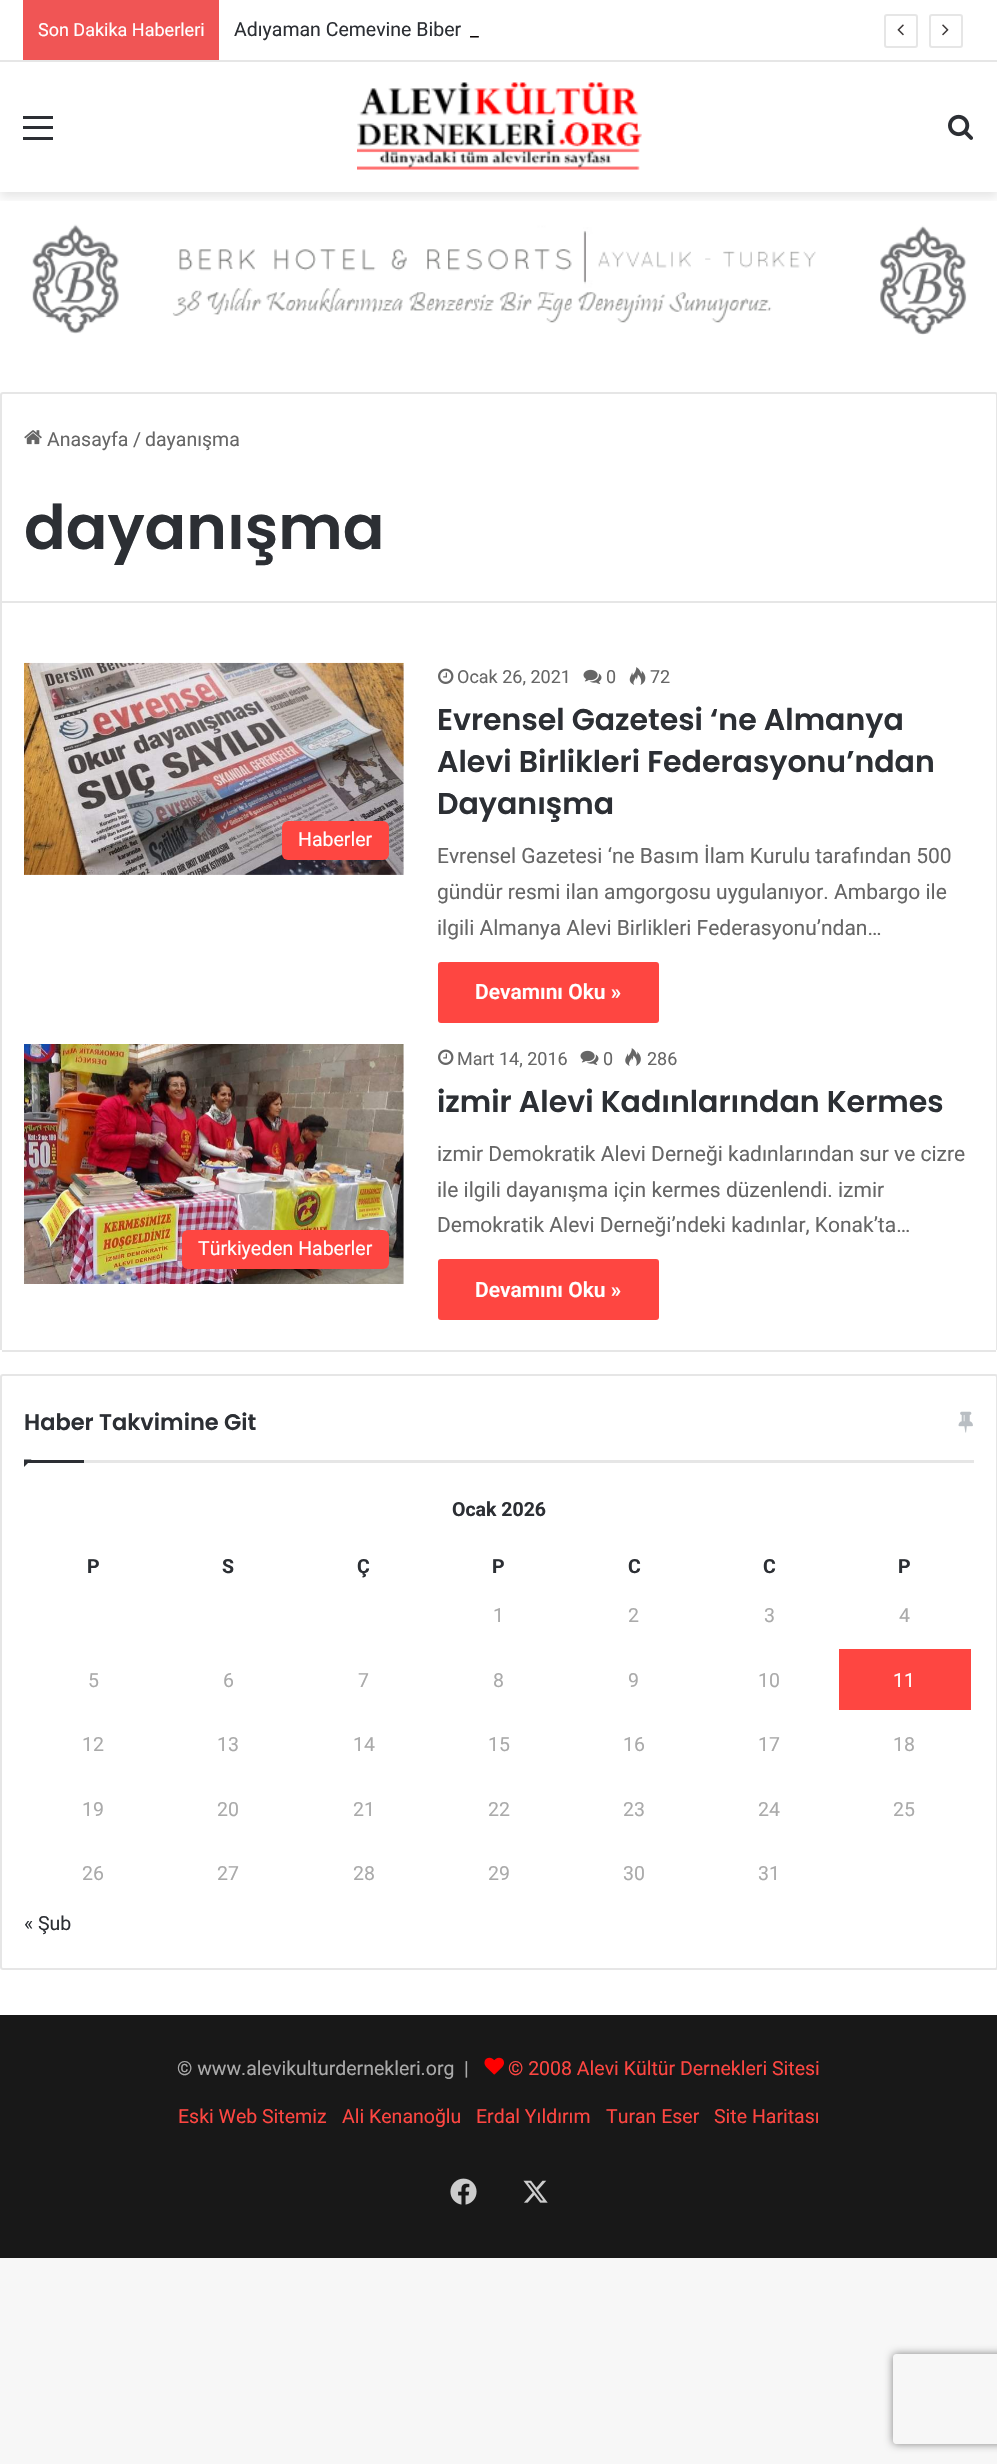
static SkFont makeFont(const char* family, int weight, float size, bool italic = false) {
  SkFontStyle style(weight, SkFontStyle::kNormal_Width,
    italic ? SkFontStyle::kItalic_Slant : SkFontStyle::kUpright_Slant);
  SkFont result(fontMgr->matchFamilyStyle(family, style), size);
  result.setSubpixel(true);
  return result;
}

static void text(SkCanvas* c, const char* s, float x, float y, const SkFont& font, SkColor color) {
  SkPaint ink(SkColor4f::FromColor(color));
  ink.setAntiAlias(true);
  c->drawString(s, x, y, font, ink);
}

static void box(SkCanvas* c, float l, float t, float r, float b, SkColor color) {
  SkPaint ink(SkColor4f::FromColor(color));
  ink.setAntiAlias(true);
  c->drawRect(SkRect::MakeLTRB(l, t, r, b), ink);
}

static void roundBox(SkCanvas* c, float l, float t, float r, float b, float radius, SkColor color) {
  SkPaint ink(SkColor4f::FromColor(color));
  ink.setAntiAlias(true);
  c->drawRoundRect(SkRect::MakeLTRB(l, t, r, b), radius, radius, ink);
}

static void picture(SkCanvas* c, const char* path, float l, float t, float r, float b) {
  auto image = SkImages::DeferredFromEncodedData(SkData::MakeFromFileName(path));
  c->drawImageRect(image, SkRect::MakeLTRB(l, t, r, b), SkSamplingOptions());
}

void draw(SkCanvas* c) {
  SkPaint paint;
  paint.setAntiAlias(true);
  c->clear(0xfff7f7f7);
  box(c, 0, 62, 997, 2015, 0xffffffff);
  c->save();
  c->clipRect(SkRect::MakeLTRB(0, 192, 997, 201));
  paint.setColor(0x1a000000);
  paint.setMaskFilter(SkMaskFilter::MakeBlur(kNormal_SkBlurStyle, 5));
  c->drawRect(SkRect::MakeLTRB(0, 66, 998, 197), paint);
  paint.setMaskFilter(nullptr);
  c->restore();
  box(c, 0, 0, 997, 60, 0xffffffff);
  box(c, 0, 60, 997, 62, 0xffe6e6e6);
  box(c, 23, 0, 219, 60, 0xfff05555);
  SkFont face1 = makeFont("Roboto", 400, 18);
  text(c, "Son Dakika Haberleri", 38, 36, face1, 0xffffffff);
  SkFont face2 = makeFont("Roboto", 400, 19.5f);
  text(c, "Adıyaman Cemevine Biber", 234, 36, face2, 0xff2c2f34);
  text(c, "_", 470, 36, face2, 0xff0a0404);
  paint.setStyle(SkPaint::kStroke_Style);
  paint.setStrokeWidth(2);
  paint.setColor(0xffe6e6e6);
  c->drawRoundRect(SkRect::MakeLTRB(885, 15, 917, 47), 2, 2, paint);
  picture(c, "img_01.png", 897, 24, 904, 36);
  c->drawRoundRect(SkRect::MakeLTRB(930, 15, 962, 47), 2, 2, paint);
  picture(c, "img_02.png", 942, 24, 949, 36);
  box(c, 23, 126, 53, 129, 0xff2c2f34);
  box(c, 23, 116, 53, 119, 0xff2c2f34);
  box(c, 23, 137, 53, 140, 0xff2c2f34);
  picture(c, "img_03.png", 357, 82, 642, 170);
  picture(c, "img_04.png", 948, 114, 973, 140);
  picture(c, "img_05.png", 32, 224, 967, 335);
  c->drawPath(SkPathBuilder().moveTo(3, 393).lineTo(995, 393).cubicTo(996, 393, 997, 394, 997, 395).lineTo(997, 602).lineTo(1, 602).lineTo(1, 395).cubicTo(1, 394, 2, 393, 3, 393).close().detach(), paint);
  picture(c, "img_06.png", 24, 430, 42, 445);
  text(c, "Anasayfa", 47, 446, face2, 0xff666666);
  text(c, "/", 133, 446, face2, 0xff666666);
  text(c, "dayanışma", 145, 446, face2, 0xff666666);
  SkFont face3 = makeFont("Poppins", 600, 61.5f);
  text(c, "dayanışma", 24, 549, face3, 0xff2c2f34);
  box(c, 996, 603, 997, 1350, 0xffe6e6e6);
  box(c, 2, 1350, 996, 1352, 0xffe6e6e6);
  box(c, 0, 603, 2, 1350, 0xffe6e6e6);
  picture(c, "img_07.png", 24, 662, 404, 875);
  roundBox(c, 282, 821, 389, 860, 6, 0xfffe4641);
  text(c, "Haberler", 298, 846, face2, 0xffffffff);
  picture(c, "img_08.png", 438, 668, 454, 684);
  text(c, "Ocak 26, 2021", 457, 683, face1, 0xff666666);
  picture(c, "img_09.png", 583, 669, 602, 684);
  text(c, "0", 606, 683, face1, 0xff666666);
  picture(c, "img_10.png", 629, 667, 646, 685);
  text(c, "72", 650, 683, face1, 0xff666666);
  SkFont face4 = makeFont("Poppins", 600, 30);
  text(c, "Evrensel Gazetesi ‘ne Almanya", 437, 730, face4, 0xff2c2f34);
  text(c, "Alevi Birlikleri Federasyonu’ndan", 437, 772, face4, 0xff2c2f34);
  text(c, "Dayanışma", 437, 814, face4, 0xff2c2f34);
  SkFont face5 = makeFont("Roboto", 400, 21);
  text(c, "Evrensel Gazetesi ‘ne Basım İlam Kurulu tarafından 500", 437, 863, face5, 0xff666666);
  text(c, "gündür resmi ilan amgorgosu uygulanıyor. Ambargo ile", 437, 899, face5, 0xff666666);
  text(c, "ilgili Almanya Alevi Birlikleri Federasyonu’ndan…", 437, 935, face5, 0xff666666);
  roundBox(c, 438, 962, 659, 1023, 3, 0xfffe4641);
  SkFont face6 = makeFont("Roboto", 600, 21);
  text(c, "Devamını Oku »", 475, 999, face6, 0xffffffff);
  picture(c, "img_11.png", 24, 1044, 404, 1284);
  roundBox(c, 182, 1230, 389, 1269, 6, 0xfffe4641);
  text(c, "Türkiyeden Haberler", 198, 1255, face2, 0xffffffff);
  picture(c, "img_08.png", 438, 1049, 454, 1065);
  text(c, "Mart 14, 2016", 457, 1065, face1, 0xff666666);
  picture(c, "img_09.png", 580, 1050, 599, 1065);
  text(c, "0", 603, 1065, face1, 0xff666666);
  picture(c, "img_12.png", 625, 1048, 641, 1066);
  text(c, "286", 647, 1065, face1, 0xff666666);
  text(c, "izmir Alevi Kadınlarından Kermes", 437, 1112, face4, 0xff2c2f34);
  text(c, "izmir Demokratik Alevi Derneği kadınlarından sur ve cizre", 437, 1161, face5, 0xff666666);
  text(c, "ile ilgili dayanışma için kermes düzenlendi. izmir", 437, 1197, face5, 0xff666666);
  text(c, "Demokratik Alevi Derneği’ndeki kadınlar, Konak’ta…", 437, 1232, face5, 0xff666666);
  roundBox(c, 438, 1259, 659, 1320, 3, 0xfffe4641);
  text(c, "Devamını Oku »", 475, 1297, face6, 0xffffffff);
  c->drawRoundRect(SkRect::MakeLTRB(1, 1375, 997, 1969), 2, 2, paint);
  box(c, 84, 1460, 974, 1463, 0xffe6e6e6);
  SkFont face7 = makeFont("Poppins", 600, 22.5f);
  text(c, "Haber Takvimine Git", 24, 1430, face7, 0xff2c2f34);
  picture(c, "img_13.png", 958, 1411, 973, 1433);
  paint.setStyle(SkPaint::kFill_Style);
  paint.setColor(0xff2c2f34);
  c->drawPath(SkPathBuilder().moveTo(24, 1459.5f).lineTo(31.5f, 1459.5f).lineTo(24, 1467).close().detach(), paint);
  box(c, 24, 1460, 84, 1463, 0xff2c2f34);
  SkFont face8 = makeFont("Roboto", 700, 19.5f);
  text(c, "Ocak 2026", 452, 1516, face8, 0xff2c2f34);
  text(c, "P", 87, 1573, face8, 0xff2c2f34);
  text(c, "S", 222, 1573, face8, 0xff2c2f34);
  text(c, "Ç", 357, 1573, face8, 0xff2c2f34);
  text(c, "P", 492, 1573, face8, 0xff2c2f34);
  text(c, "C", 628, 1573, face8, 0xff2c2f34);
  text(c, "C", 763, 1573, face8, 0xff2c2f34);
  text(c, "P", 898, 1573, face8, 0xff2c2f34);
  text(c, "1", 493, 1622, face2, 0xffaaaaaa);
  text(c, "2", 628, 1622, face2, 0xffaaaaaa);
  text(c, "3", 764, 1622, face2, 0xffaaaaaa);
  text(c, "4", 899, 1622, face2, 0xffaaaaaa);
  text(c, "5", 88, 1687, face2, 0xffaaaaaa);
  text(c, "6", 223, 1687, face2, 0xffaaaaaa);
  text(c, "7", 358, 1687, face2, 0xffaaaaaa);
  text(c, "8", 493, 1687, face2, 0xffaaaaaa);
  text(c, "9", 628, 1687, face2, 0xffaaaaaa);
  text(c, "10", 758, 1687, face2, 0xffaaaaaa);
  box(c, 839, 1649, 971, 1710, 0xfffe4641);
  text(c, "11", 893, 1687, face2, 0xffffffff);
  text(c, "12", 82, 1751, face2, 0xffaaaaaa);
  text(c, "13", 217, 1751, face2, 0xffaaaaaa);
  text(c, "14", 353, 1751, face2, 0xffaaaaaa);
  text(c, "15", 488, 1751, face2, 0xffaaaaaa);
  text(c, "16", 623, 1751, face2, 0xffaaaaaa);
  text(c, "17", 758, 1751, face2, 0xffaaaaaa);
  text(c, "18", 893, 1751, face2, 0xffaaaaaa);
  text(c, "19", 82, 1816, face2, 0xffaaaaaa);
  text(c, "20", 217, 1816, face2, 0xffaaaaaa);
  text(c, "21", 353, 1816, face2, 0xffaaaaaa);
  text(c, "22", 488, 1816, face2, 0xffaaaaaa);
  text(c, "23", 623, 1816, face2, 0xffaaaaaa);
  text(c, "24", 758, 1816, face2, 0xffaaaaaa);
  text(c, "25", 893, 1816, face2, 0xffaaaaaa);
  text(c, "26", 82, 1880, face2, 0xffaaaaaa);
  text(c, "27", 217, 1880, face2, 0xffaaaaaa);
  text(c, "28", 353, 1880, face2, 0xffaaaaaa);
  text(c, "29", 488, 1880, face2, 0xffaaaaaa);
  text(c, "30", 623, 1880, face2, 0xffaaaaaa);
  text(c, "31", 758, 1880, face2, 0xffaaaaaa);
  text(c, "« Şub", 24, 1930, face2, 0xff2c2f34);
  box(c, 0, 2015, 997, 2258, 0xff181818);
  text(c, "© www.alevikulturdernekleri.org  |", 177, 2075, face2, 0xffaaaaaa);
  picture(c, "img_14.png", 484, 2057, 504, 2075);
  text(c, "© 2008 Alevi Kültür Dernekleri Sitesi", 508, 2075, face2, 0xfffe4641);
  text(c, "Eski Web Sitemiz", 178, 2123, face2, 0xfffe4641);
  text(c, "Ali Kenanoğlu", 342, 2123, face2, 0xfffe4641);
  text(c, "Erdal Yıldırım", 476, 2123, face2, 0xfffe4641);
  text(c, "Turan Eser", 606, 2123, face2, 0xfffe4641);
  text(c, "Site Haritası", 714, 2123, face2, 0xfffe4641);
  picture(c, "img_15.png", 450, 2178, 477, 2205);
  picture(c, "img_16.png", 523, 2180, 548, 2203);
  c->save();
  c->clipPath(SkPathBuilder(SkPathFillType::kEvenOdd).moveTo(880, 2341).lineTo(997, 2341).lineTo(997, 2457).lineTo(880, 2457).close().moveTo(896, 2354).lineTo(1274, 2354).cubicTo(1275.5f, 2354, 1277, 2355.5f, 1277, 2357).lineTo(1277, 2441).cubicTo(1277, 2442.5f, 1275.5f, 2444, 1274, 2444).lineTo(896, 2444).cubicTo(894.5f, 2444, 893, 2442.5f, 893, 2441).lineTo(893, 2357).cubicTo(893, 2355.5f, 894.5f, 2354, 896, 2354).close().detach(), true);
  paint.setColor(0xff808080);
  paint.setMaskFilter(SkMaskFilter::MakeBlur(kNormal_SkBlurStyle, 4));
  c->drawRoundRect(SkRect::MakeLTRB(893, 2354, 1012, 2444), 3, 3, paint);
  paint.setMaskFilter(nullptr);
  c->restore();
}
